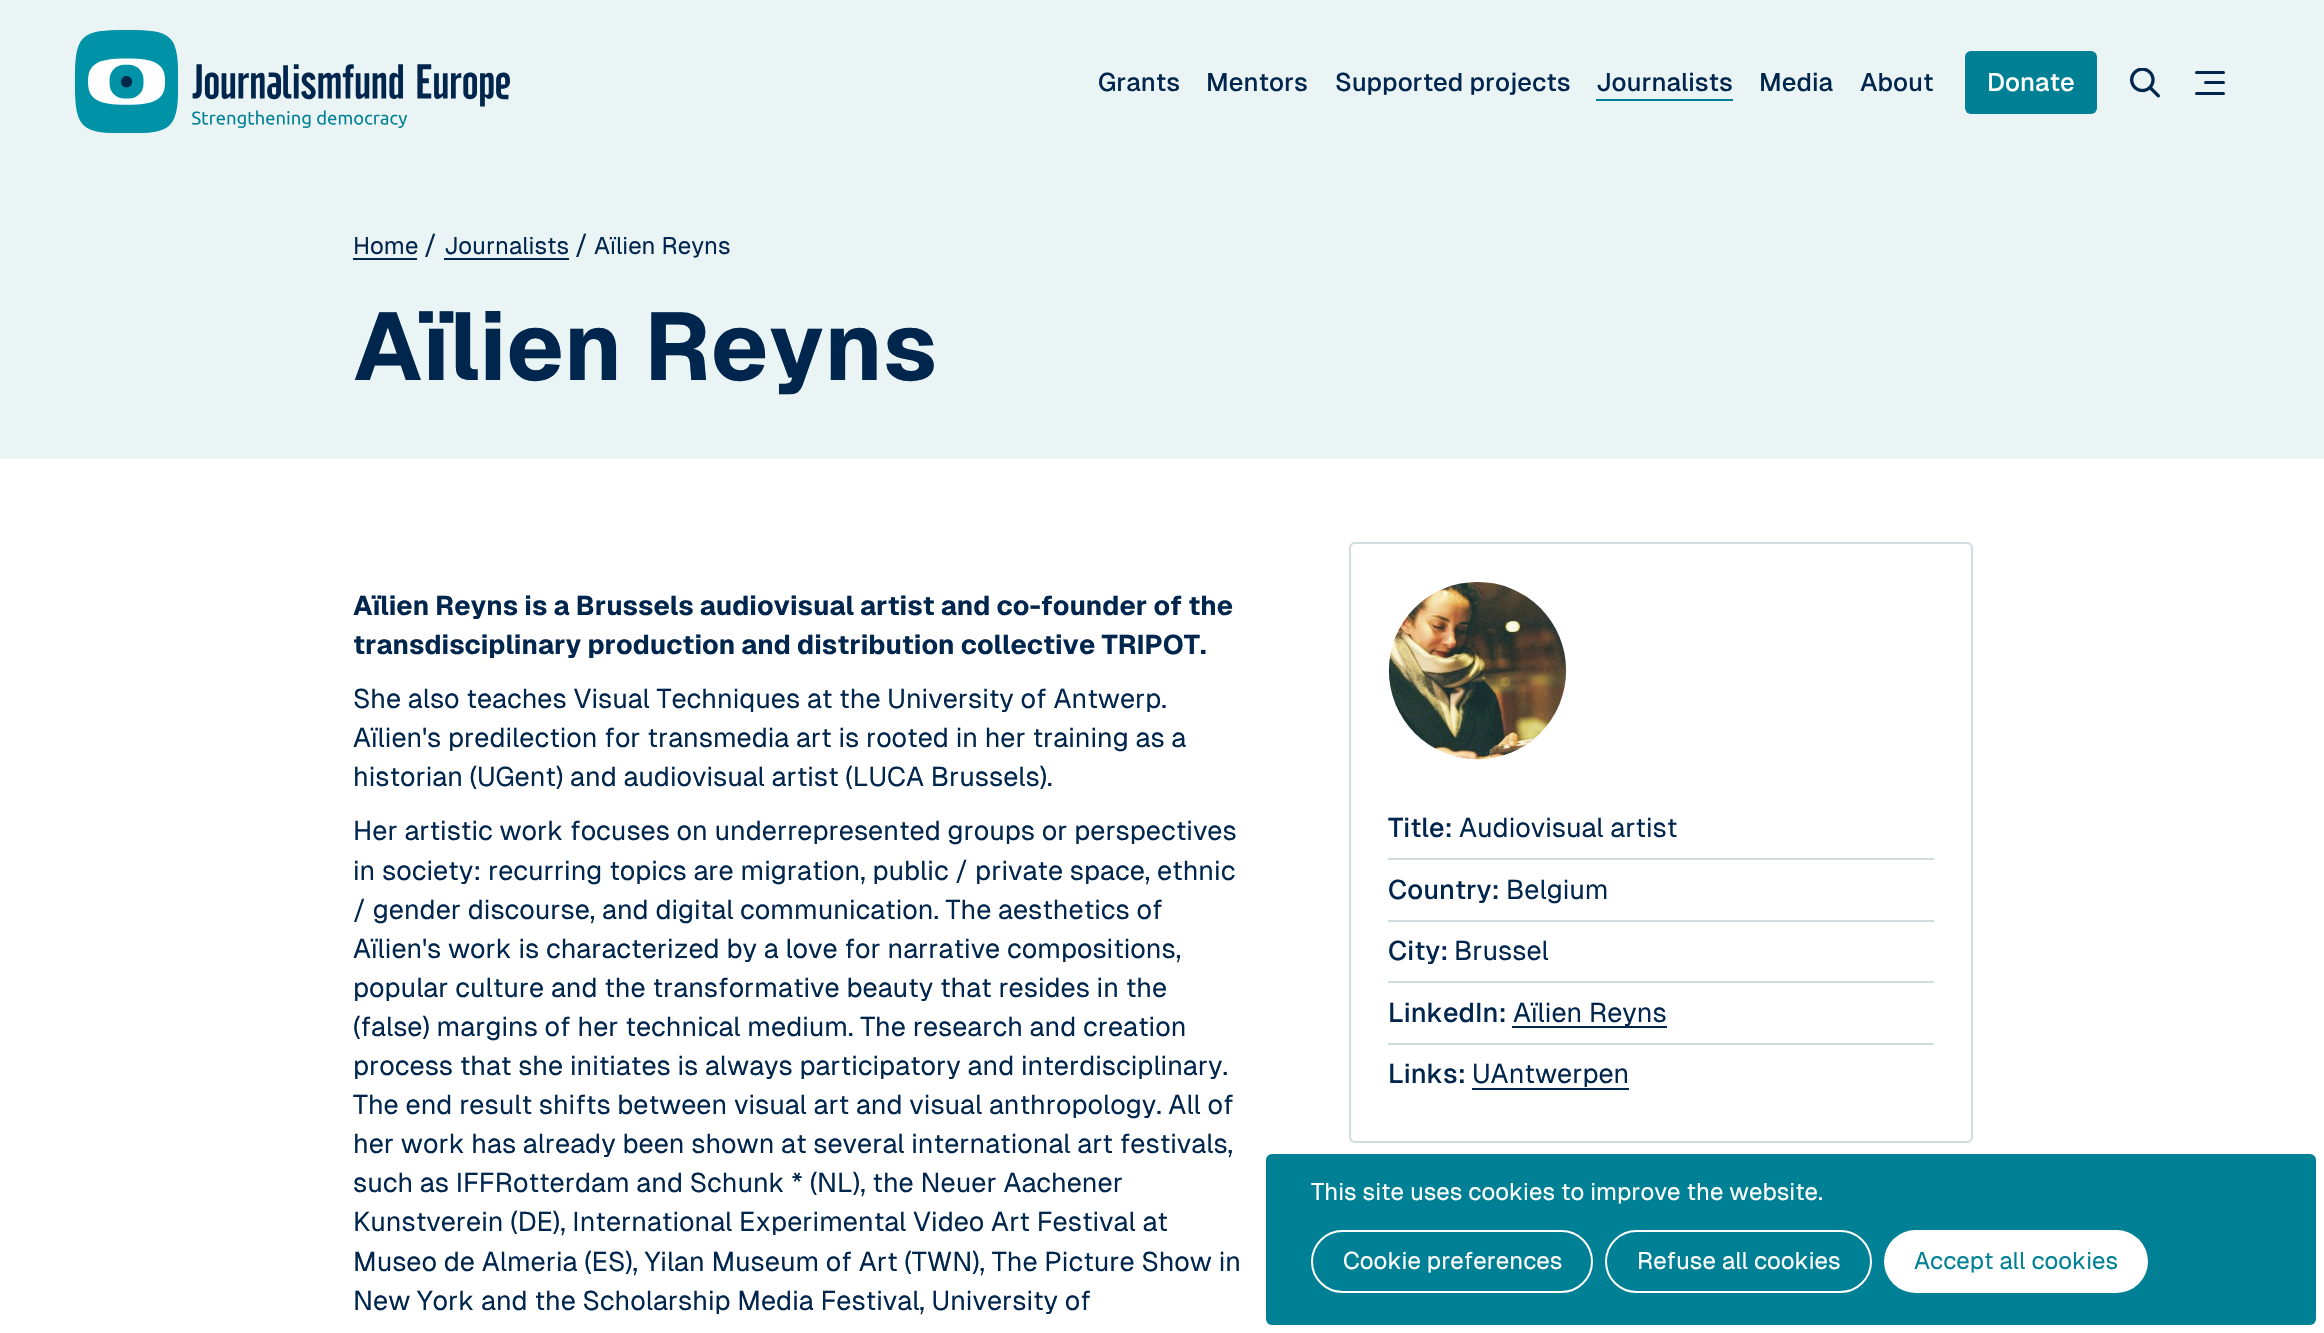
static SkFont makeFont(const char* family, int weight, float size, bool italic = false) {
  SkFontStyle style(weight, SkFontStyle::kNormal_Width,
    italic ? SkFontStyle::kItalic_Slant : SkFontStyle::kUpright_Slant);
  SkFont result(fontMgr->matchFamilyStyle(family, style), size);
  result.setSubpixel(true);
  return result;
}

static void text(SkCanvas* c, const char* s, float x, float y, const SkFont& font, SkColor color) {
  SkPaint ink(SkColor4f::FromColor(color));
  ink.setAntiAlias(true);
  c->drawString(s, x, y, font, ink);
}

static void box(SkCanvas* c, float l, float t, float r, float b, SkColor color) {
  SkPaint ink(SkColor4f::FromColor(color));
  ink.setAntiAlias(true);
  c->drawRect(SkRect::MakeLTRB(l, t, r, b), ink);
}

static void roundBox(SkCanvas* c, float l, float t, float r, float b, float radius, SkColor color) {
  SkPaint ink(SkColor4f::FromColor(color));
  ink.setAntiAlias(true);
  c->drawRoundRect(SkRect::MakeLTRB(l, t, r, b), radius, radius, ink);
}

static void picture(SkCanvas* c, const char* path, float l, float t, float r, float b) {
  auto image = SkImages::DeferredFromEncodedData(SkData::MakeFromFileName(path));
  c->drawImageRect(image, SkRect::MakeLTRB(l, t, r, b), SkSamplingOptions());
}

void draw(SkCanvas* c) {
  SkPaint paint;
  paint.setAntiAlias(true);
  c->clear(0xffffffff);
  box(c, 0, 0, 2324, 459, 0xffebf4f5);
  picture(c, "img_01.png", 75, 30, 510, 133);
  SkFont face1 = makeFont("Geist", 500, 25.5f);
  text(c, "Grants", 1098, 91, face1, 0xff00264d);
  text(c, "Mentors", 1206, 91, face1, 0xff00264d);
  text(c, "Supported projects", 1335, 91, face1, 0xff00264d);
  text(c, "Journalists", 1596, 91, face1, 0xff00264d);
  box(c, 1596, 99, 1733, 101, 0xff008094);
  text(c, "Media", 1759, 91, face1, 0xff00264d);
  text(c, "About", 1860, 91, face1, 0xff00264d);
  roundBox(c, 1965, 51, 2097, 114, 6, 0xff008094);
  text(c, "Donate", 1987, 91, face1, 0xffffffff);
  picture(c, "img_02.png", 2130, 68, 2160, 98);
  roundBox(c, 2195, 71, 2225, 74, 1.5f, 0xff00264d);
  roundBox(c, 2204, 81, 2225, 84, 1.5f, 0xff00264d);
  roundBox(c, 2195, 92, 2225, 95, 1.5f, 0xff00264d);
  SkFont face2 = makeFont("Geist", 400, 24);
  text(c, "Home", 353, 254, face2, 0xff00264d);
  box(c, 353, 258, 417, 260, 0xff00264d);
  SkFont face3 = makeFont("Geist", 400, 27);
  text(c, "/", 424, 254, face3, 0xff00264d);
  text(c, "Journalists", 444, 254, face2, 0xff00264d);
  box(c, 444, 258, 569, 260, 0xff00264d);
  text(c, "/", 575, 254, face3, 0xff00264d);
  text(c, "Aïlien Reyns", 594, 254, face2, 0xff00264d);
  SkFont face4 = makeFont("Geist", 700, 95.5f);
  text(c, "Aïlien Reyns", 353, 380, face4, 0xff00264d);
  SkFont face5 = makeFont("Geist", 700, 27);
  text(c, "Aïlien Reyns is a Brussels audiovisual artist and co-founder of the", 353, 615, face5, 0xff00264d);
  text(c, "transdisciplinary production and distribution collective TRIPOT.", 353, 654, face5, 0xff00264d);
  text(c, "She also teaches Visual Techniques at the University of Antwerp.", 353, 708, face3, 0xff00264d);
  text(c, "Aïlien's predilection for transmedia art is rooted in her training as a", 353, 747, face3, 0xff00264d);
  text(c, "historian (UGent) and audiovisual artist (LUCA Brussels).", 353, 786, face3, 0xff00264d);
  text(c, "Her artistic work focuses on underrepresented groups or perspectives", 353, 840, face3, 0xff00264d);
  text(c, "in society: recurring topics are migration, public / private space, ethnic", 353, 880, face3, 0xff00264d);
  text(c, "/ gender discourse, and digital communication. The aesthetics of", 353, 919, face3, 0xff00264d);
  text(c, "Aïlien's work is characterized by a love for narrative compositions,", 353, 958, face3, 0xff00264d);
  text(c, "popular culture and the transformative beauty that resides in the", 353, 997, face3, 0xff00264d);
  text(c, "(false) margins of her technical medium. The research and creation", 353, 1036, face3, 0xff00264d);
  text(c, "process that she initiates is always participatory and interdisciplinary.", 353, 1075, face3, 0xff00264d);
  text(c, "The end result shifts between visual art and visual anthropology. All of", 353, 1114, face3, 0xff00264d);
  text(c, "her work has already been shown at several international art festivals,", 353, 1153, face3, 0xff00264d);
  text(c, "such as IFFRotterdam and Schunk * (NL), the Neuer Aachener", 353, 1192, face3, 0xff00264d);
  text(c, "Kunstverein (DE), International Experimental Video Art Festival at", 353, 1231, face3, 0xff00264d);
  text(c, "Museo de Almeria (ES), Yilan Museum of Art (TWN), The Picture Show in", 353, 1271, face3, 0xff00264d);
  text(c, "New York and the Scholarship Media Festival, University of", 353, 1310, face3, 0xff00264d);
  paint.setStyle(SkPaint::kStroke_Style);
  paint.setStrokeWidth(2);
  paint.setColor(0xffd0ddde);
  c->drawRoundRect(SkRect::MakeLTRB(1350, 543, 1972, 1142), 5, 5, paint);
  picture(c, "img_03.png", 1388, 582, 1567, 760);
  box(c, 1388, 858, 1934, 860, 0xffd0ddde);
  SkFont face6 = makeFont("Geist", 500, 27);
  text(c, "Title:", 1388, 837, face6, 0xff00264d);
  text(c, "Audiovisual artist", 1459, 837, face3, 0xff00264d);
  box(c, 1388, 920, 1934, 922, 0xffd0ddde);
  text(c, "Country:", 1388, 899, face6, 0xff00264d);
  text(c, "Belgium", 1506, 899, face3, 0xff00264d);
  box(c, 1388, 981, 1934, 983, 0xffd0ddde);
  text(c, "City:", 1388, 960, face6, 0xff00264d);
  text(c, "Brussel", 1454, 960, face3, 0xff00264d);
  box(c, 1388, 1043, 1934, 1045, 0xffd0ddde);
  text(c, "LinkedIn:", 1388, 1022, face6, 0xff00264d);
  box(c, 1512, 1026, 1667, 1028, 0xff00264d);
  text(c, "Aïlien Reyns", 1513, 1022, face3, 0xff00264d);
  text(c, "Links:", 1388, 1083, face6, 0xff00264d);
  text(c, "UAntwerpen", 1472, 1083, face3, 0xff00264d);
  box(c, 1472, 1088, 1629, 1090, 0xff00264d);
  roundBox(c, 1266, 1154, 2316, 1325, 6, 0xff008094);
  text(c, "This site uses cookies to improve the website.", 1311, 1200, face2, 0xffffffff);
  paint.setColor(0xffffffff);
  c->drawRoundRect(SkRect::MakeLTRB(1312, 1231, 1592, 1292), 30.5f, 30.5f, paint);
  text(c, "Cookie preferences", 1343, 1269, face2, 0xffffffff);
  c->drawRoundRect(SkRect::MakeLTRB(1606, 1231, 1871, 1292), 30.5f, 30.5f, paint);
  text(c, "Refuse all cookies", 1637, 1269, face2, 0xffffffff);
  roundBox(c, 1884, 1230, 2148, 1293, 31.5f, 0xffffffff);
  text(c, "Accept all cookies", 1914, 1269, face2, 0xff008094);
}
